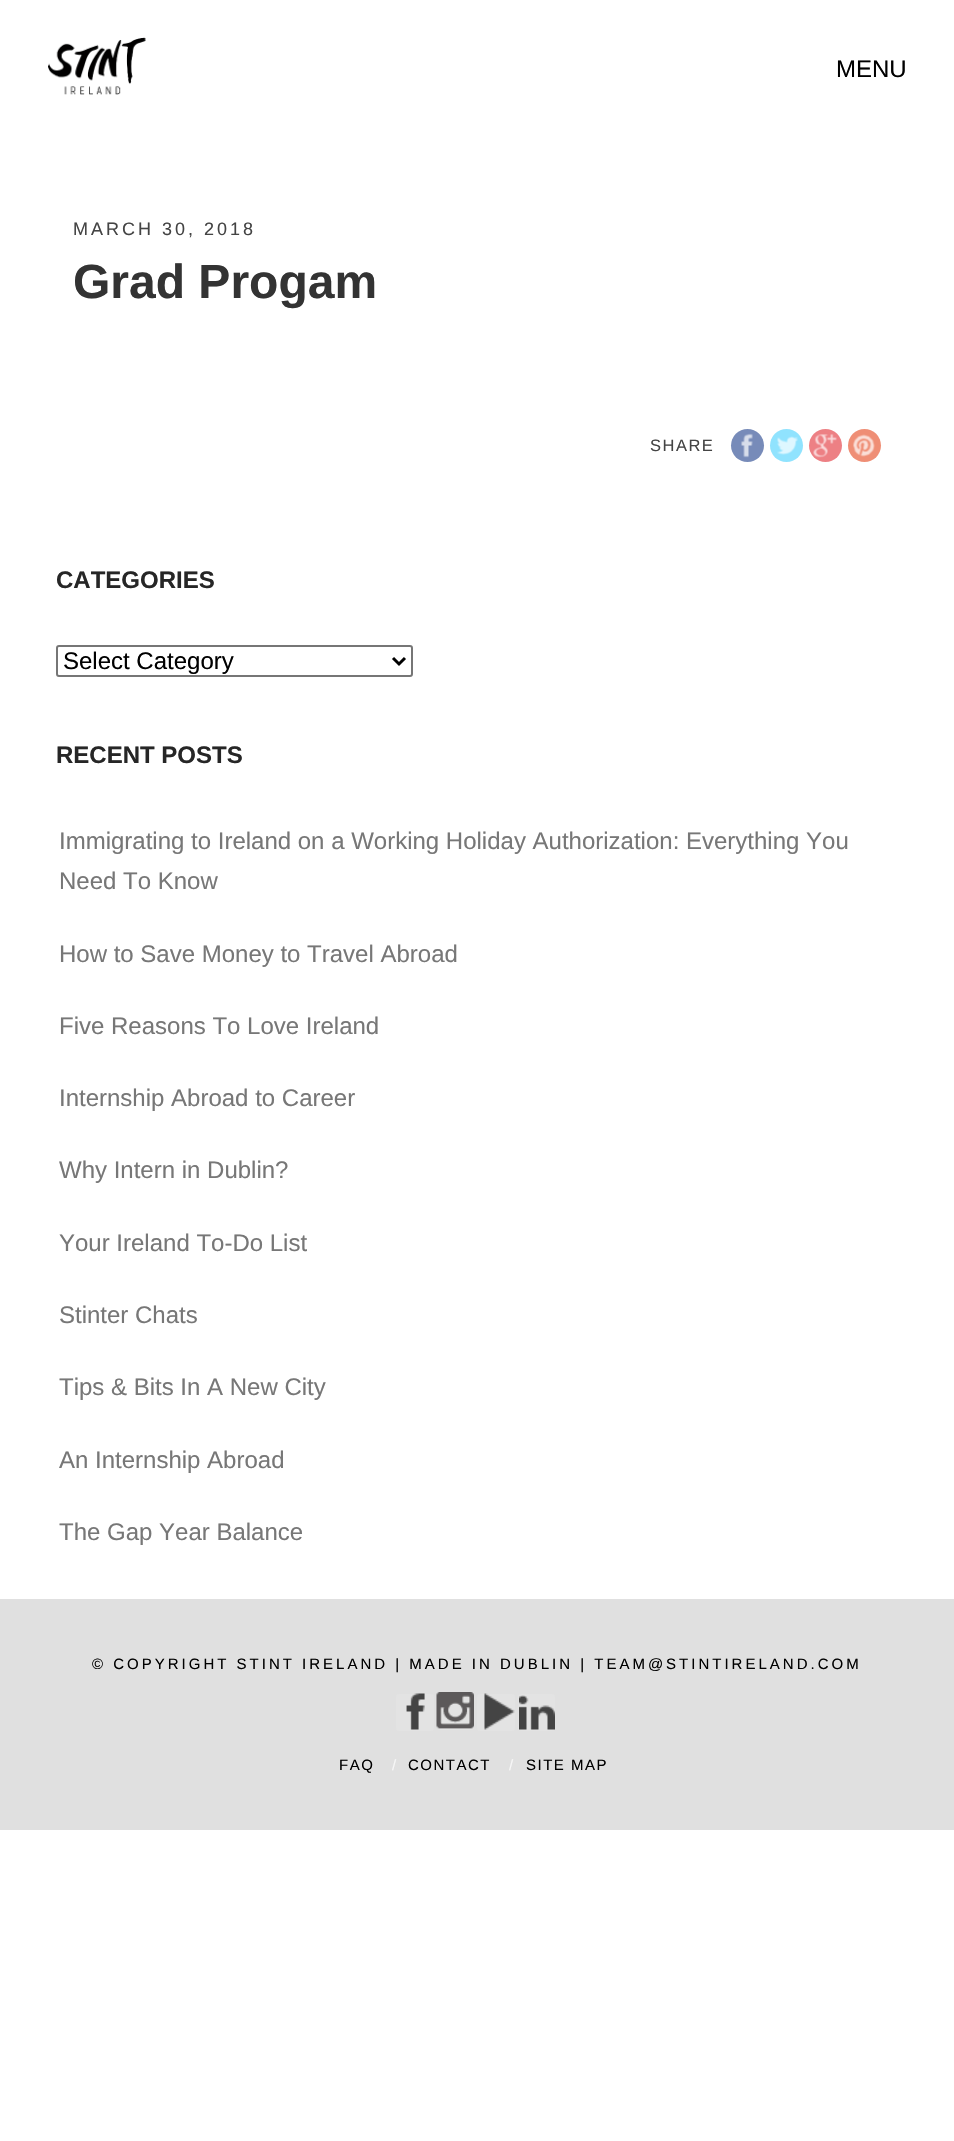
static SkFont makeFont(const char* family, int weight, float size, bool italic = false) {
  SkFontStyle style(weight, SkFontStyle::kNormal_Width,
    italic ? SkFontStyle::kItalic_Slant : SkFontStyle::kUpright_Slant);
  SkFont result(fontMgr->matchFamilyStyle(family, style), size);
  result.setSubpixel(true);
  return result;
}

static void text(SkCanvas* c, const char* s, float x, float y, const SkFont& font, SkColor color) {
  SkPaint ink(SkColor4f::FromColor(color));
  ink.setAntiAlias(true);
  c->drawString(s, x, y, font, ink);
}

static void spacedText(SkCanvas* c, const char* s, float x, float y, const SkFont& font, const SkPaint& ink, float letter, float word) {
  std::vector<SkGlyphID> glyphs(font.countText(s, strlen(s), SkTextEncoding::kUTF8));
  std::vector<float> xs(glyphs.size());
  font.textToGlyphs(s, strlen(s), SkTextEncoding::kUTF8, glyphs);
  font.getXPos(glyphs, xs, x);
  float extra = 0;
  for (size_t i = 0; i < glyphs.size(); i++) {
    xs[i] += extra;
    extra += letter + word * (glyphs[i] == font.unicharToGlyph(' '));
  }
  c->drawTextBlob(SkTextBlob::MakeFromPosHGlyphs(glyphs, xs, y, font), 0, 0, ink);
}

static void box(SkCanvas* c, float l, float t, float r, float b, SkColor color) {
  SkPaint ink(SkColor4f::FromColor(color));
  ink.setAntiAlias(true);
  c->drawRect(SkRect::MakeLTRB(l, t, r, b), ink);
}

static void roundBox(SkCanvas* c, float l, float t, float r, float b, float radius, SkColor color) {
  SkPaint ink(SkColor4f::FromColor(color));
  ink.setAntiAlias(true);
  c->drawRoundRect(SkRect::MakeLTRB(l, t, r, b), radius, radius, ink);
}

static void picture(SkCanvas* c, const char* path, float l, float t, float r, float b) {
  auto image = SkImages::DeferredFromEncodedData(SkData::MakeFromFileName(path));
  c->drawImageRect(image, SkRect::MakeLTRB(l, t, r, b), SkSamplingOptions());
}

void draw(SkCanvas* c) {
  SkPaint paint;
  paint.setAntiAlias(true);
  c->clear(0xffffffff);
  picture(c, "img_01.png", 48, 37, 146, 95);
  SkFont face1 = makeFont("Liberation Sans", 400, 24);
  text(c, "MENU", 836, 77, face1, 0xff000000);
  SkFont face2 = makeFont("Liberation Sans", 400, 18);
  paint.setColor(0xff444444);
  spacedText(c, "MARCH 30, 2018", 73, 235, face2, paint, 3, 0);
  SkFont face3 = makeFont("Liberation Sans", 700, 48);
  text(c, "Grad Progam", 73, 298, face3, 0xff333333);
  SkFont face4 = makeFont("Liberation Sans", 400, 16.5f);
  spacedText(c, "SHARE", 650, 451, face4, paint, 1.5f, 0);
  paint.setColor(0xff778bb9);
  c->drawCircle(747.5f, 445.5f, 16.5f, paint);
  picture(c, "img_02.png", 741, 433, 753, 458);
  paint.setColor(0xff90e3fe);
  c->drawCircle(786.5f, 445.5f, 16.5f, paint);
  picture(c, "img_03.png", 777, 436, 798, 455);
  paint.setColor(0xffed8084);
  c->drawCircle(825.5f, 445.5f, 16.5f, paint);
  picture(c, "img_04.png", 813, 434, 837, 458);
  paint.setColor(0xffef8e75);
  c->drawCircle(864.5f, 445.5f, 16.5f, paint);
  picture(c, "img_05.png", 853, 434, 875, 457);
  SkFont face5 = makeFont("Liberation Sans", 700, 24);
  text(c, "CATEGORIES", 56, 588, face5, 0xff262626);
  paint.setStyle(SkPaint::kStroke_Style);
  paint.setStrokeWidth(2);
  paint.setColor(0xff767676);
  c->drawRoundRect(SkRect::MakeLTRB(57, 646, 412, 676), 2, 2, paint);
  paint.setStrokeWidth(3);
  paint.setColor(0xff000000);
  c->drawPath(SkPathBuilder().moveTo(393, 658).lineTo(399, 664).lineTo(405, 658).detach(), paint);
  text(c, "Select Category", 63, 669, face1, 0xff000000);
  text(c, "RECENT POSTS", 56, 763, face5, 0xff262626);
  text(c, "Immigrating to Ireland on a Working Holiday Authorization: Everything You", 59, 849, face1, 0xff777777);
  text(c, "Need To Know", 59, 889, face1, 0xff777777);
  text(c, "How to Save Money to Travel Abroad", 59, 962, face1, 0xff777777);
  text(c, "Five Reasons To Love Ireland", 59, 1034, face1, 0xff777777);
  text(c, "Internship Abroad to Career", 59, 1106, face1, 0xff777777);
  text(c, "Why Intern in Dublin?", 59, 1178, face1, 0xff777777);
  text(c, "Your Ireland To-Do List", 59, 1251, face1, 0xff777777);
  text(c, "Stinter Chats", 59, 1323, face1, 0xff777777);
  text(c, "Tips & Bits In A New City", 59, 1395, face1, 0xff777777);
  text(c, "An Internship Abroad", 59, 1468, face1, 0xff777777);
  text(c, "The Gap Year Balance", 59, 1540, face1, 0xff777777);
  box(c, 0, 1599, 954, 1830, 0xffe0e0e0);
  SkFont face6 = makeFont("Liberation Sans", 400, 15);
  paint.setStyle(SkPaint::kFill_Style);
  spacedText(c, "© COPYRIGHT STINT IRELAND | MADE IN DUBLIN | TEAM@STINTIRELAND.COM", 92, 1669, face6, paint, 3, 0);
  roundBox(c, 396, 1694, 434, 1731, 3, 0xffe3e3e3);
  picture(c, "img_06.png", 406, 1693, 425, 1730);
  roundBox(c, 437, 1692, 474, 1730, 3, 0xffe3e3e3);
  picture(c, "img_07.png", 436, 1692, 474, 1729);
  roundBox(c, 477, 1694, 515, 1731, 3, 0xffe3e3e3);
  picture(c, "img_08.png", 484, 1693, 515, 1730);
  roundBox(c, 518, 1694, 555, 1731, 3, 0xffe3e3e3);
  picture(c, "img_09.png", 519, 1695, 555, 1730);
  spacedText(c, "FAQ", 339, 1770, face6, paint, 1.5f, 0);
  paint.setColor(0xfff7f7f7);
  spacedText(c, "/", 392, 1770, face6, paint, 1.5f, 0);
  paint.setColor(0xff000000);
  spacedText(c, "CONTACT", 408, 1770, face6, paint, 1.5f, 0);
  paint.setColor(0xfff7f7f7);
  spacedText(c, "/", 509, 1770, face6, paint, 1.5f, 0);
  paint.setColor(0xff000000);
  spacedText(c, "SITE MAP", 526, 1770, face6, paint, 1.5f, 0);
}
